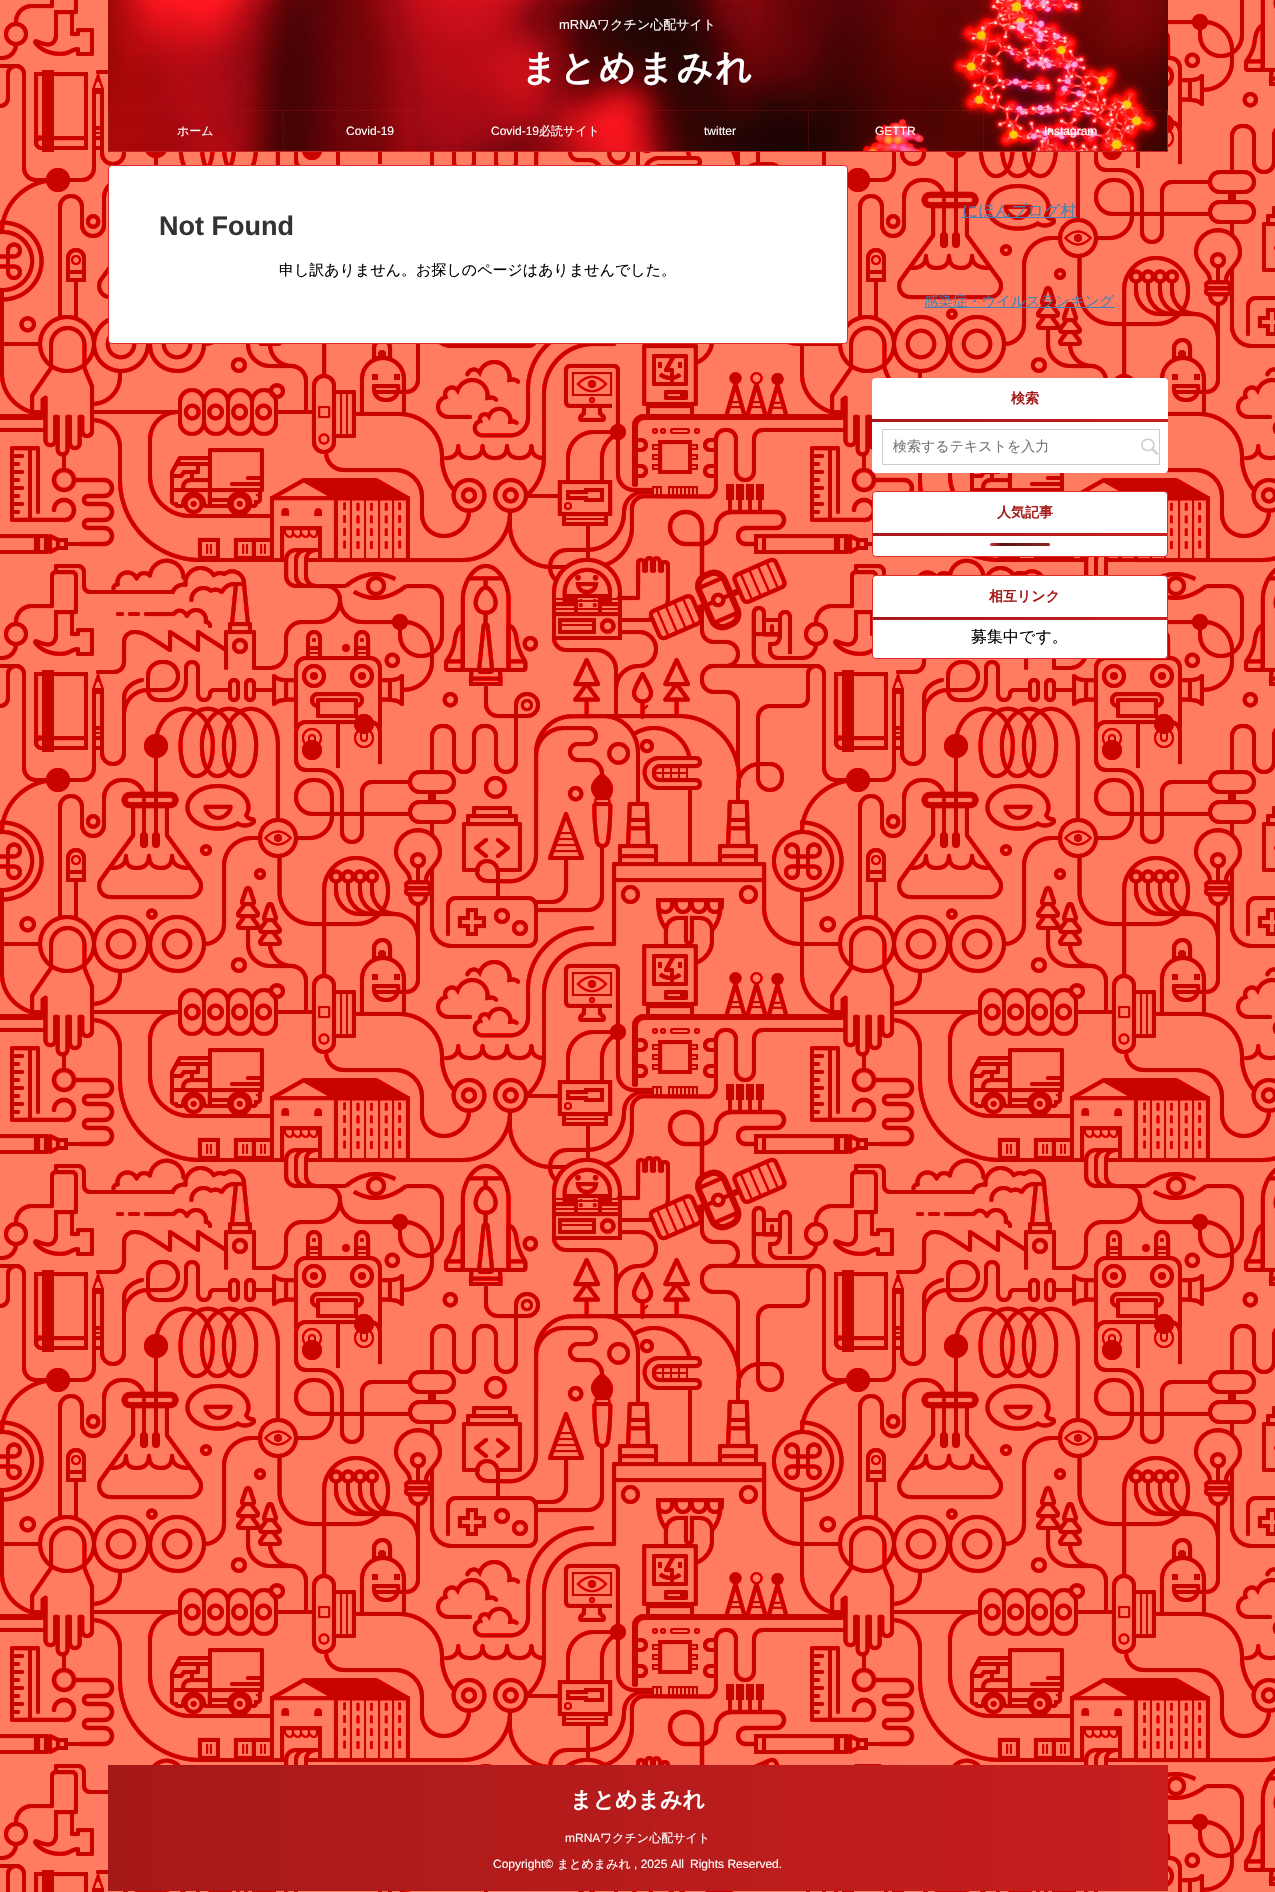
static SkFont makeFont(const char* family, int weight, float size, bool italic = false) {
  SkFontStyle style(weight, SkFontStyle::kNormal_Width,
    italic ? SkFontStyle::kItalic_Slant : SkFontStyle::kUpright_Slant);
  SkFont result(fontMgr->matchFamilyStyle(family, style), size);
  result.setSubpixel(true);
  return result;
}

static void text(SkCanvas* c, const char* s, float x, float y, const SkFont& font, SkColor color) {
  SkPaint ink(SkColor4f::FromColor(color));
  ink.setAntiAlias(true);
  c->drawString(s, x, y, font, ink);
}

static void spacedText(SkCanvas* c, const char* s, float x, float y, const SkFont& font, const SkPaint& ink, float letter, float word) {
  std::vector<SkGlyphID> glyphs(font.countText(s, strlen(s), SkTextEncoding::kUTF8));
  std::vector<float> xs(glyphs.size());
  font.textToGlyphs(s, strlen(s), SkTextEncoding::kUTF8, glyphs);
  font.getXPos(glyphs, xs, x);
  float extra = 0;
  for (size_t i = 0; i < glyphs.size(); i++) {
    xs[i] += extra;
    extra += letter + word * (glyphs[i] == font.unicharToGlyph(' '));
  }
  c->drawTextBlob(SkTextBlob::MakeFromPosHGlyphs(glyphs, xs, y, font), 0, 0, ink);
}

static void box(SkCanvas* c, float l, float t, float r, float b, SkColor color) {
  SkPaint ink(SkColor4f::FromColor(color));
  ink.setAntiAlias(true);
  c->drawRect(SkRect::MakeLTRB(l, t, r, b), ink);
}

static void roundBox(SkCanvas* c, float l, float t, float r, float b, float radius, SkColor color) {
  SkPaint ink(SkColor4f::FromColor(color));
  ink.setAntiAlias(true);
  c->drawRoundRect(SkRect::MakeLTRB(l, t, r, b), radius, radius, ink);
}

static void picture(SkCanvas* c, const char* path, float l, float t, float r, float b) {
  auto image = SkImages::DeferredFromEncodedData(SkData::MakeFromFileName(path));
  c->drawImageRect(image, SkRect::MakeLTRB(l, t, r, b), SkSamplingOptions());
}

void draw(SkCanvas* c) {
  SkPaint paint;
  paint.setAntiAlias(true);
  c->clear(0xffffffff);
  picture(c, "img_01.png", 0, 0, 1275, 1892);
  picture(c, "img_02.png", 108, 0, 1168, 151);
  SkFont face1 = makeFont("Liberation Sans", 400, 13);
  text(c, "mRNA", 559, 29, face1, 0xffffffff);
  SkFont face2 = makeFont("WenQuanYi Zen Hei", 500, 13);
  text(c, "ワクチン心配サイト", 597, 29, face2, 0xffffffff);
  SkFont face3 = makeFont("WenQuanYi Zen Hei", 700, 36);
  paint.setColor(0xffffffff);
  spacedText(c, "まとめまみれ", 521, 80, face3, paint, 2, 0);
  box(c, 109, 110, 1168, 111, 0x33c81e1e);
  box(c, 1167, 111, 1168, 152, 0xffa61919);
  box(c, 109, 151, 1168, 152, 0xffc81e1e);
  box(c, 108, 111, 109, 152, 0xffa61919);
  box(c, 283, 111, 284, 151, 0x33c81e1e);
  SkFont face4 = makeFont("WenQuanYi Zen Hei", 500, 12);
  text(c, "ホーム", 177, 135, face4, 0xffffffff);
  box(c, 458, 111, 459, 151, 0x33c81e1e);
  SkFont face5 = makeFont("Liberation Sans", 400, 12);
  text(c, "Covid-19", 346, 135, face5, 0xffffffff);
  box(c, 633, 111, 634, 151, 0x33c81e1e);
  text(c, "Covid-19", 491, 135, face5, 0xffffffff);
  text(c, "必読サイト", 539, 135, face4, 0xffffffff);
  box(c, 808, 111, 809, 151, 0x33c81e1e);
  text(c, "twitter", 704, 135, face5, 0xffffffff);
  box(c, 983, 111, 984, 151, 0x33c81e1e);
  text(c, "GETTR", 875, 135, face5, 0xffffffff);
  text(c, "Instagram", 1044, 135, face5, 0xffffffff);
  c->drawRoundRect(SkRect::MakeLTRB(108.5f, 165.5f, 847.5f, 343.5f), 3.5f, 3.5f, paint);
  paint.setStyle(SkPaint::kStroke_Style);
  paint.setStrokeWidth(1);
  paint.setColor(0xffdf2b2b);
  c->drawRoundRect(SkRect::MakeLTRB(108.5f, 165.5f, 847.5f, 343.5f), 3.5f, 3.5f, paint);
  SkFont face6 = makeFont("Liberation Sans", 700, 27);
  text(c, "Not Found", 159, 235, face6, 0xff333333);
  SkFont face7 = makeFont("WenQuanYi Zen Hei", 500, 15);
  text(c, "申し訳ありません。お探しのページはありませんでした。", 279, 275, face7, 0xff000000);
  box(c, 962, 217, 1077, 218, 0xff4682b4);
  SkFont face8 = makeFont("WenQuanYi Zen Hei", 500, 16);
  text(c, "にほんブログ村", 962, 216, face8, 0xff4682b4);
  box(c, 924, 307, 1115, 308, 0xff4682b4);
  SkFont face9 = makeFont("WenQuanYi Zen Hei", 500, 14.4f);
  text(c, "感染症・ウイルスランキング", 924, 306, face9, 0xff4682b4);
  roundBox(c, 872, 378, 1168, 473, 4, 0xffffffff);
  SkFont face10 = makeFont("WenQuanYi Zen Hei", 700, 14);
  text(c, "検索", 1011, 403, face10, 0xffa61919);
  paint.setStyle(SkPaint::kFill_Style);
  {
    const SkColor colors[] = {0xffc81e1e, 0xffa61919};
    const float stops[] = {0, 1};
    const SkPoint ends[] = {{1168, 421}, {872, 421}};
    paint.setShader(SkGradientShader::MakeLinear(ends, colors, stops, 2, SkTileMode::kClamp));
    paint.setAlpha(255);
  }
  c->drawRect(SkRect::MakeLTRB(872, 419, 1168, 422), paint);
  paint.setStyle(SkPaint::kStroke_Style);
  paint.setShader(nullptr);
  paint.setColor(0xffcccccc);
  c->drawRect(SkRect::MakeLTRB(882.5f, 429.5f, 1159.5f, 464.5f), paint);
  SkFont face11 = makeFont("WenQuanYi Zen Hei", 500, 14);
  text(c, "検索するテキストを入力", 893, 451, face11, 0xff757575);
  picture(c, "img_03.png", 1141, 438, 1159, 455);
  paint.setStyle(SkPaint::kFill_Style);
  paint.setColor(0xffffffff);
  c->drawRoundRect(SkRect::MakeLTRB(872.5f, 491.5f, 1167.5f, 556.5f), 3.5f, 3.5f, paint);
  paint.setStyle(SkPaint::kStroke_Style);
  paint.setColor(0xffdf2b2b);
  c->drawRoundRect(SkRect::MakeLTRB(872.5f, 491.5f, 1167.5f, 556.5f), 3.5f, 3.5f, paint);
  text(c, "人気記事", 997, 517, face10, 0xffa61919);
  paint.setStyle(SkPaint::kFill_Style);
  {
    const SkColor colors[] = {0xffc81e1e, 0xffa61919};
    const float stops[] = {0, 1};
    const SkPoint ends[] = {{1167, 535}, {873, 535}};
    paint.setShader(SkGradientShader::MakeLinear(ends, colors, stops, 2, SkTileMode::kClamp));
    paint.setAlpha(255);
  }
  c->drawRect(SkRect::MakeLTRB(873, 533, 1167, 536), paint);
  {
    const SkColor colors[] = {0xffdd3737, 0xff571313, 0xffdd3737};
    const float stops[] = {0, 0.1f, 1};
    const SkPoint ends[] = {{990, 545}, {1110, 545}};
    paint.setShader(SkGradientShader::MakeLinear(ends, colors, stops, 3, SkTileMode::kClamp));
    paint.setAlpha(255);
  }
  c->drawRoundRect(SkRect::MakeLTRB(990, 543, 1050, 546), 1.5f, 1.5f, paint);
  paint.setShader(nullptr);
  paint.setColor(0xffffffff);
  c->drawRoundRect(SkRect::MakeLTRB(872.5f, 575.5f, 1167.5f, 658.5f), 3.5f, 3.5f, paint);
  paint.setStyle(SkPaint::kStroke_Style);
  paint.setColor(0xffdf2b2b);
  c->drawRoundRect(SkRect::MakeLTRB(872.5f, 575.5f, 1167.5f, 658.5f), 3.5f, 3.5f, paint);
  text(c, "相互リンク", 989, 601, face10, 0xffa61919);
  paint.setStyle(SkPaint::kFill_Style);
  {
    const SkColor colors[] = {0xffc81e1e, 0xffa61919};
    const float stops[] = {0, 1};
    const SkPoint ends[] = {{1167, 619}, {873, 619}};
    paint.setShader(SkGradientShader::MakeLinear(ends, colors, stops, 2, SkTileMode::kClamp));
    paint.setAlpha(255);
  }
  c->drawRect(SkRect::MakeLTRB(873, 617, 1167, 620), paint);
  text(c, "募集中です。", 971, 642, face8, 0xff000000);
  {
    const SkColor colors[] = {0xffc81e1e, 0xffa61919};
    const float stops[] = {0, 1};
    const SkPoint ends[] = {{1168, 1828}, {108, 1828}};
    paint.setShader(SkGradientShader::MakeLinear(ends, colors, stops, 2, SkTileMode::kClamp));
    paint.setAlpha(255);
  }
  c->drawRect(SkRect::MakeLTRB(108, 1765, 1168, 1891), paint);
  SkFont face12 = makeFont("WenQuanYi Zen Hei", 700, 22);
  text(c, "まとめまみれ", 570, 1807, face12, 0xffffffff);
  text(c, "mRNA", 565, 1842, face5, 0xffffffff);
  text(c, "ワクチン心配サイト", 600, 1842, face4, 0xffffffff);
  text(c, "Copyright©", 493, 1868, face5, 0xffffffff);
  text(c, "まとめまみれ", 557, 1868, face4, 0xffffffff);
  text(c, ", 2025 All Rights Reserved.", 634, 1868, face5, 0xffffffff);
}
